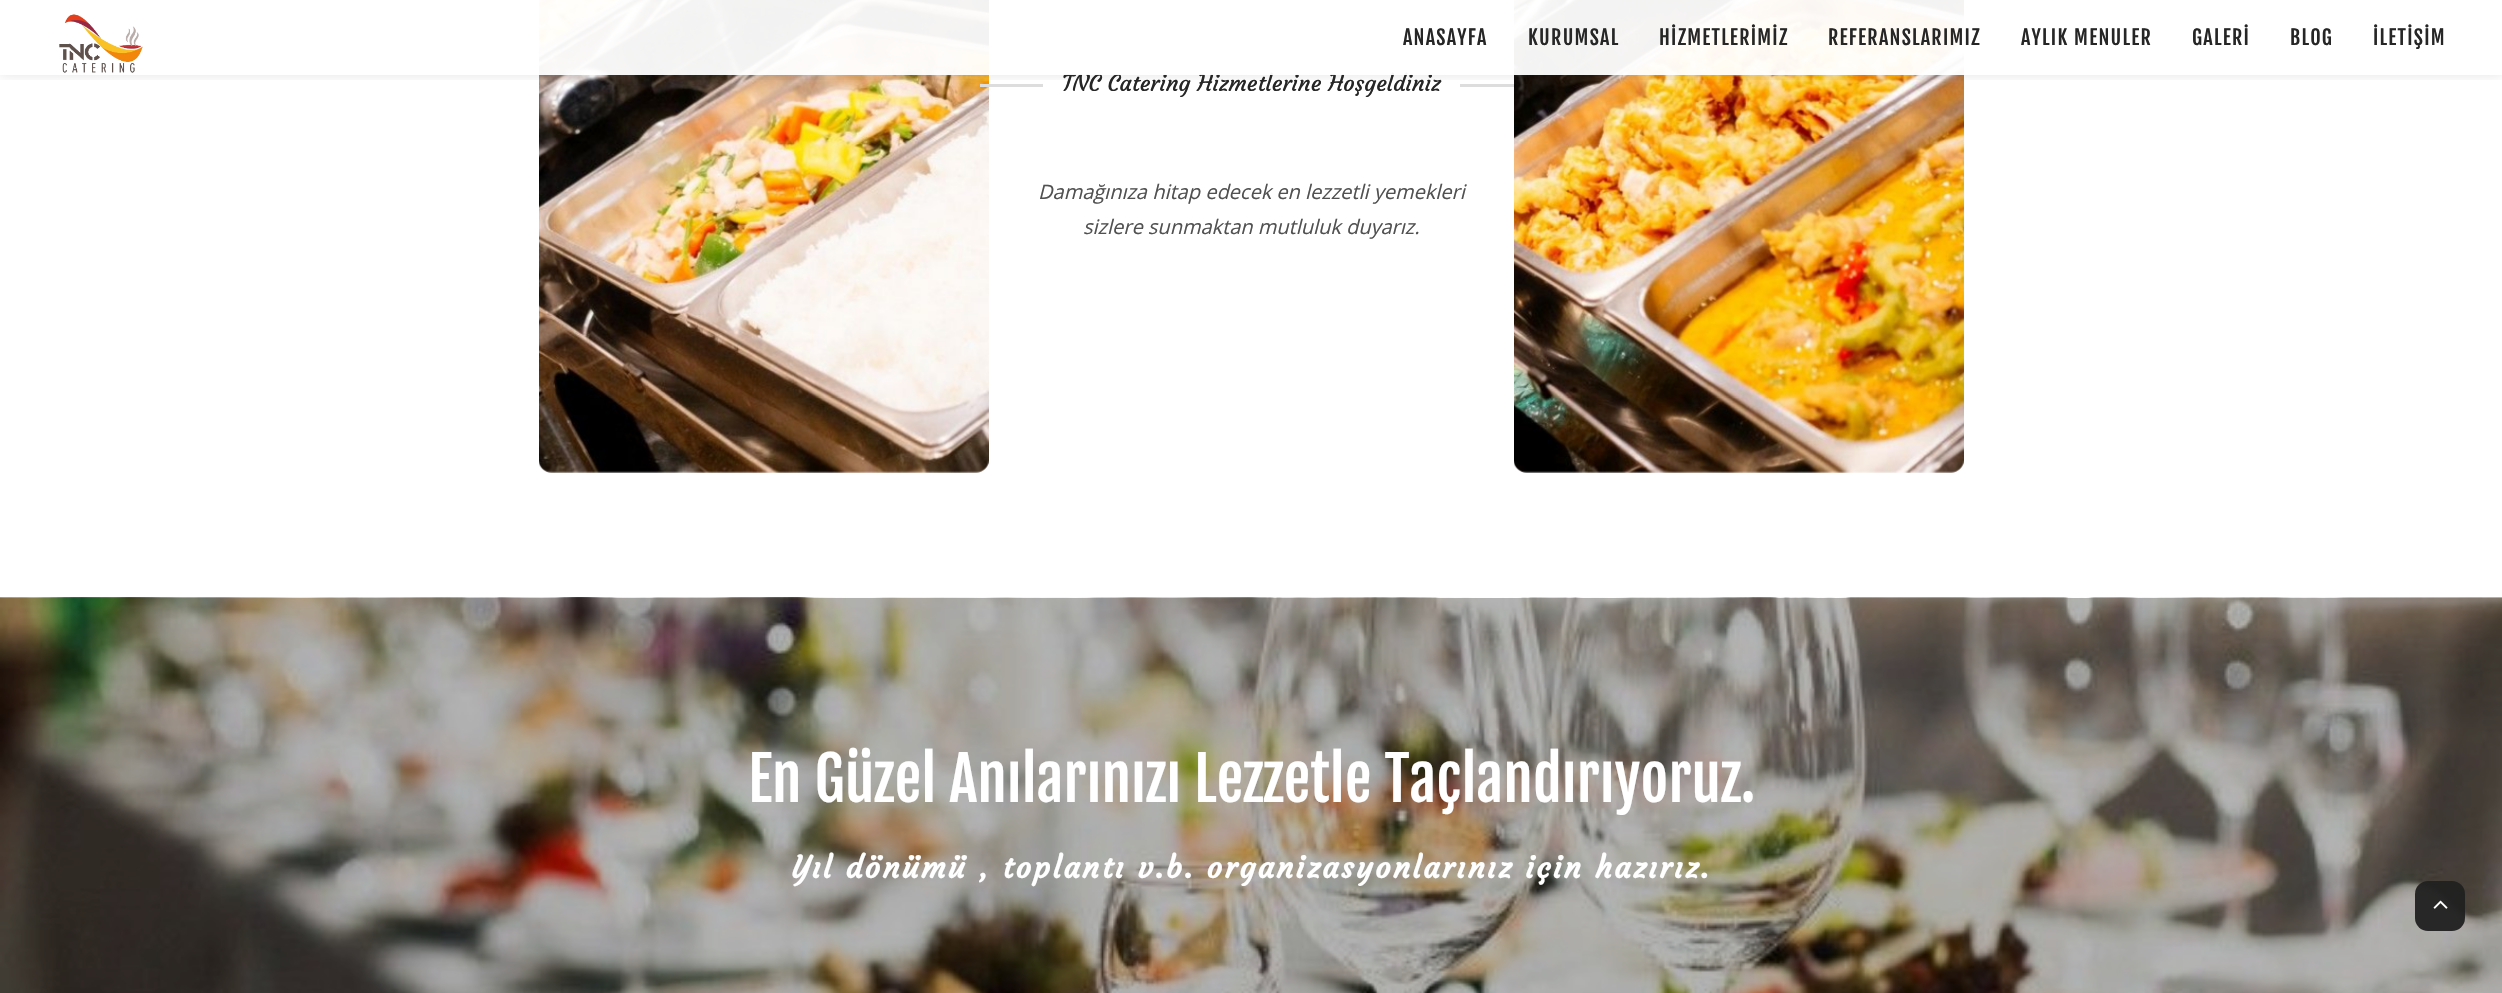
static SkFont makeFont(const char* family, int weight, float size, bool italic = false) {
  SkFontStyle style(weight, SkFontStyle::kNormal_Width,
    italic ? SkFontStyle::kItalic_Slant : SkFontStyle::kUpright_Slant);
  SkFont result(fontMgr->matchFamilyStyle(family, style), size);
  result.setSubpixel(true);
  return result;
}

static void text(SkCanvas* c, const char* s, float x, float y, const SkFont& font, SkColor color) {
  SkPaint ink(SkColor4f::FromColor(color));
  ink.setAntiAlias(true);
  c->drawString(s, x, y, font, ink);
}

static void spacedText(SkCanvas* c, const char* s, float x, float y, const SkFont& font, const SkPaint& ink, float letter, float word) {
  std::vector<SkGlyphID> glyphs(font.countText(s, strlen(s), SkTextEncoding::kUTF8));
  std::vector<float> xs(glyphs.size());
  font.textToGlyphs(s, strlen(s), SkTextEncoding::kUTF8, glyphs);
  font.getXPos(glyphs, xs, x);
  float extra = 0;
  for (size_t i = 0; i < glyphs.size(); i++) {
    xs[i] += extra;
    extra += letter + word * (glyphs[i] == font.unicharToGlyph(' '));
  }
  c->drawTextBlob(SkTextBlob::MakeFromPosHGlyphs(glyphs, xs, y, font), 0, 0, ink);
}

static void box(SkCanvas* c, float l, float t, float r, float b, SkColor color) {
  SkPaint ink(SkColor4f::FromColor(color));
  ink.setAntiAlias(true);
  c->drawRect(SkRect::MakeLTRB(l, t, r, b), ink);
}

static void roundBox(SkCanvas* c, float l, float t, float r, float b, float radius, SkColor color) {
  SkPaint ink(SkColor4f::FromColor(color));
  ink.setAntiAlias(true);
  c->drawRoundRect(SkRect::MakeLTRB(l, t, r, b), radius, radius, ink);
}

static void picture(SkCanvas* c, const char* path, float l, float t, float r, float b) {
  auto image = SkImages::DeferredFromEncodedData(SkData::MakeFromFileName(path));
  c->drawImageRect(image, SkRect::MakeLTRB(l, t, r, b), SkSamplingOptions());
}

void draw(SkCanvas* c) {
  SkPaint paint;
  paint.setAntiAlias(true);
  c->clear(0xffffffff);
  picture(c, "img_02.png", 539, 0, 989, 473);
  box(c, 980, 84, 1043, 87, 0xffdddddd);
  box(c, 1460, 84, 1514, 87, 0xffdddddd);
  picture(c, "img_03.png", 1514, 0, 1964, 473);
  c->save();
  c->clipRect(SkRect::MakeLTRB(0, 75, 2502, 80));
  paint.setColor(0x1a000000);
  paint.setMaskFilter(SkMaskFilter::MakeBlur(kNormal_SkBlurStyle, 6));
  c->drawRect(SkRect::MakeLTRB(0, 0, 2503, 75), paint);
  paint.setMaskFilter(nullptr);
  c->restore();
  SkFont face1 = makeFont("Courgette", 400, 22.5f);
  text(c, "TNC Catering Hizmetlerine Hoşgeldiniz", 1062, 91, face1, 0xff262626);
  box(c, 539, 0, 1964, 75, 0xf2ffffff);
  picture(c, "img_01.png", 59, 14, 143, 73);
  SkFont face2 = makeFont("Fjalla One", 400, 20);
  paint.setColor(0xff262626);
  spacedText(c, "ANASAYFA", 1403, 45, face2, paint, 1.25f, 0);
  spacedText(c, "KURUMSAL", 1528, 45, face2, paint, 1.25f, 0);
  spacedText(c, "HİZMETLERİMİZ", 1659, 45, face2, paint, 1.25f, 0);
  spacedText(c, "REFERANSLARIMIZ", 1828, 45, face2, paint, 1.25f, 0);
  spacedText(c, "AYLIK MENULER", 2021, 45, face2, paint, 1.25f, 0);
  spacedText(c, "GALERİ", 2192, 45, face2, paint, 1.25f, 0);
  spacedText(c, "BLOG", 2290, 45, face2, paint, 1.25f, 0);
  spacedText(c, "İLETİŞİM", 2373, 45, face2, paint, 1.25f, 0);
  SkFont face3 = makeFont("Open Sans", 400, 20, true);
  text(c, "Damağınıza hitap edecek en lezzetli yemekleri", 1038, 199, face3, 0xff515151);
  text(c, "sizlere sunmaktan mutluluk duyarız.", 1083, 234, face3, 0xff515151);
  picture(c, "img_04.png", 0, 597, 2502, 993);
  SkFont face4 = makeFont("Fjalla One", 400, 60);
  text(c, "En Güzel Anılarınızı Lezzetle Taçlandırıyoruz.", 748, 802, face4, 0xffffffff);
  SkFont face5 = makeFont("Courgette", 700, 30);
  paint.setColor(0xffffffff);
  spacedText(c, "Yıl dönümü , toplantı v.b. organizasyonlarınız için hazırız.", 792, 878, face5, paint, 2.5f, 0);
  roundBox(c, 2415, 881, 2465, 931, 13, 0xf2202020);
  picture(c, "img_05.png", 2433, 900, 2448, 909);
}
